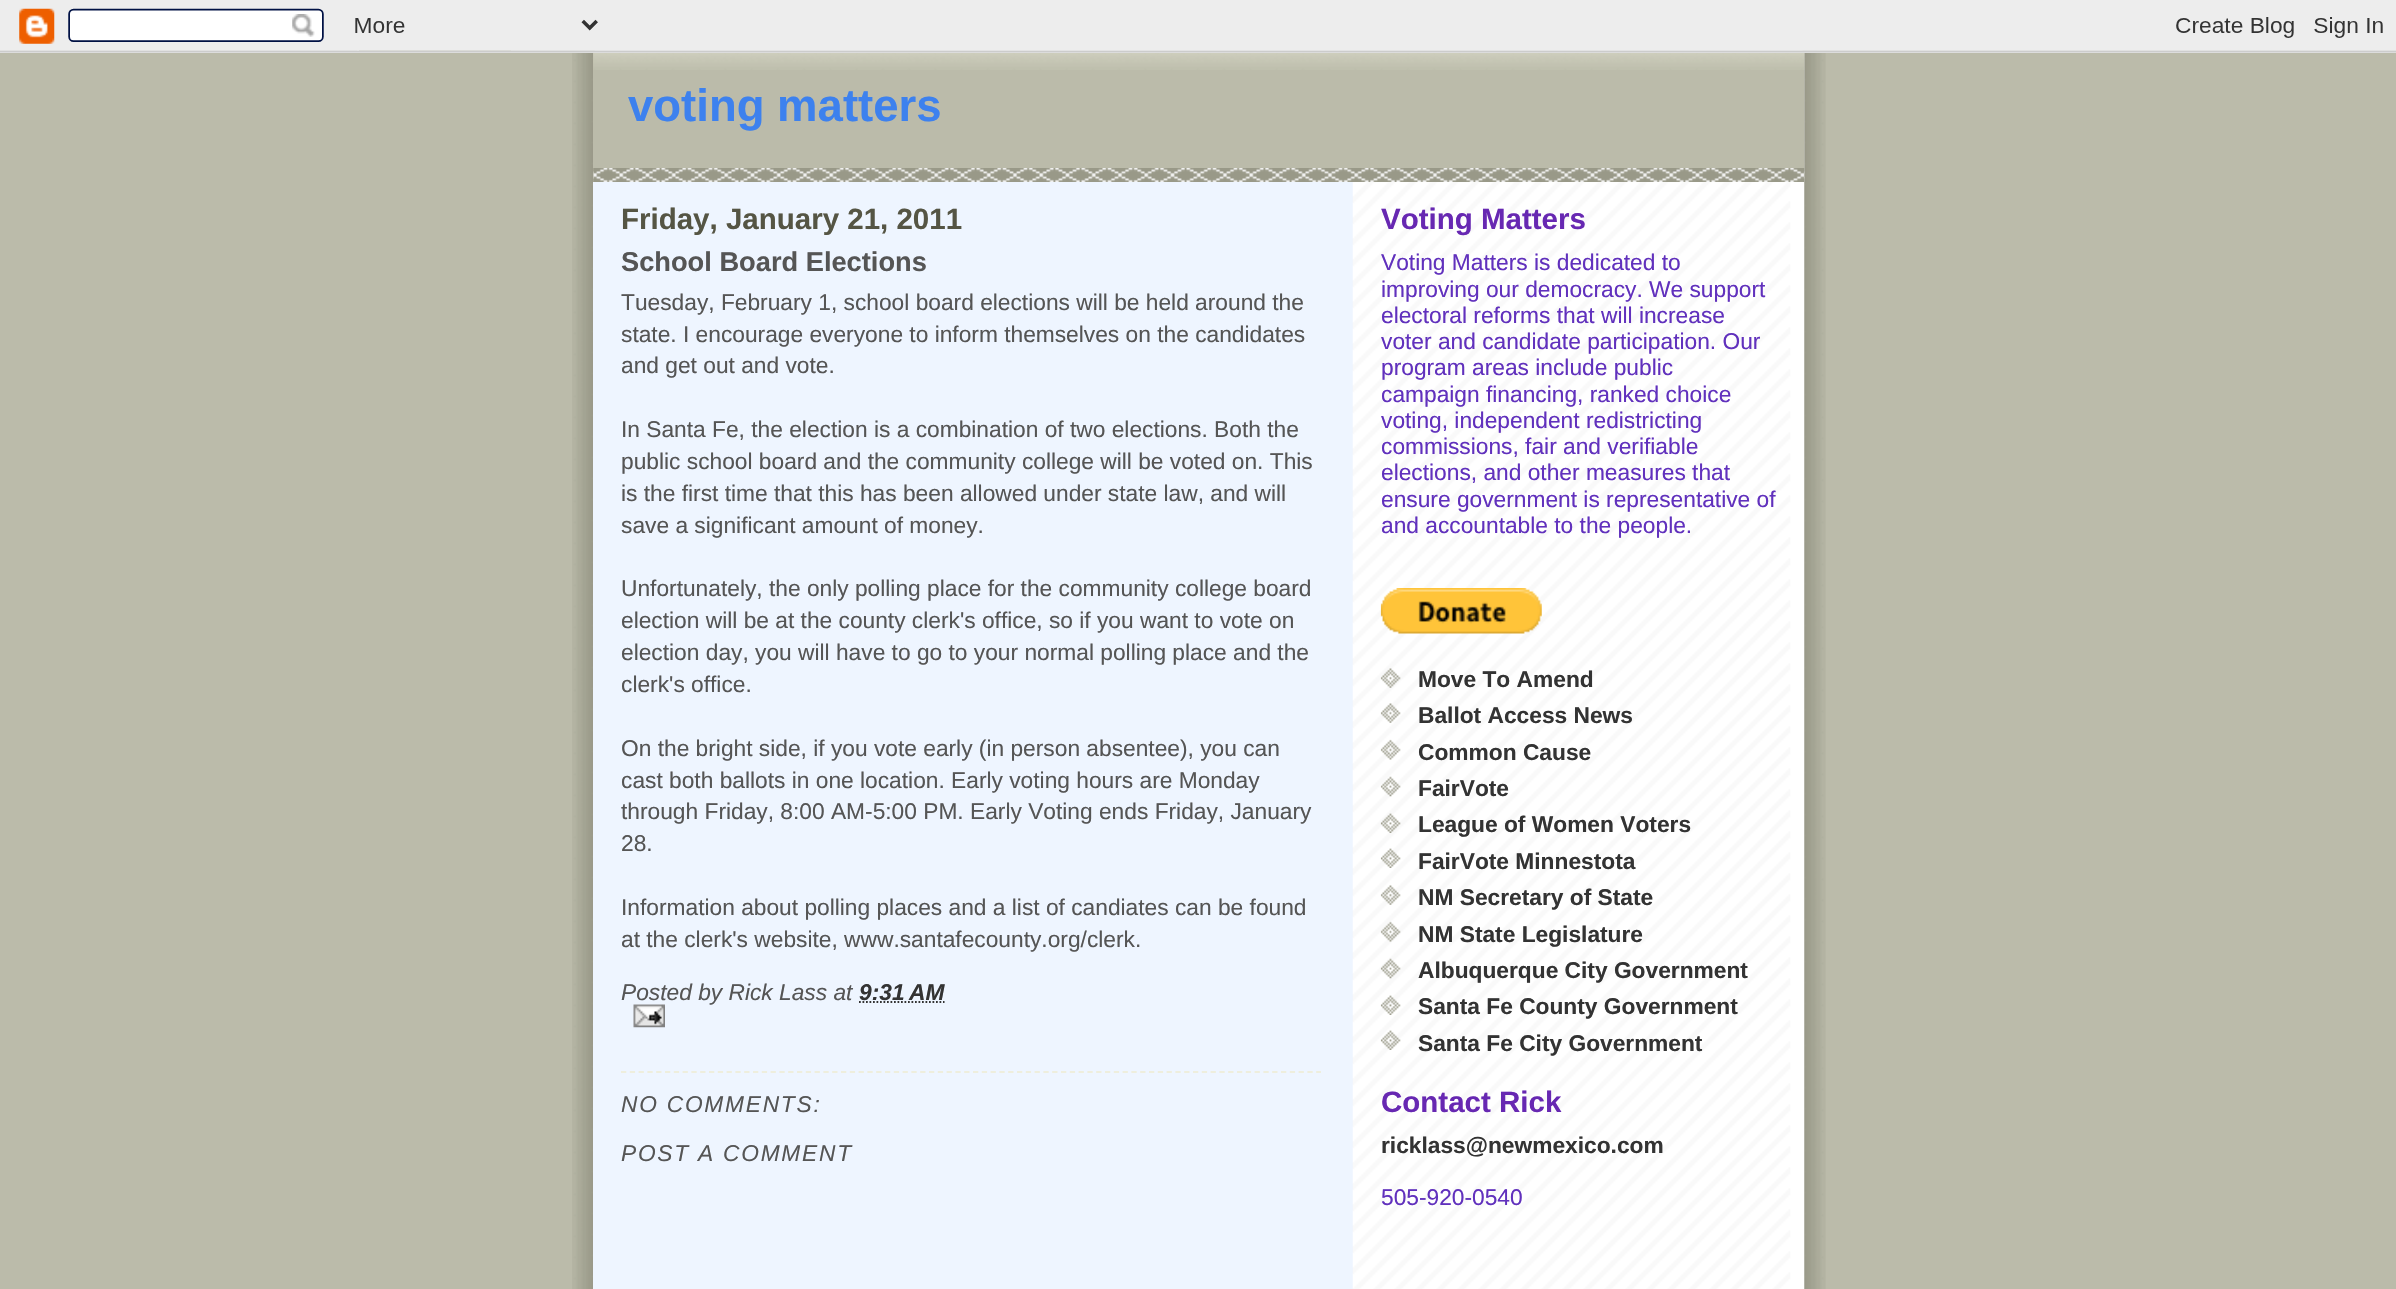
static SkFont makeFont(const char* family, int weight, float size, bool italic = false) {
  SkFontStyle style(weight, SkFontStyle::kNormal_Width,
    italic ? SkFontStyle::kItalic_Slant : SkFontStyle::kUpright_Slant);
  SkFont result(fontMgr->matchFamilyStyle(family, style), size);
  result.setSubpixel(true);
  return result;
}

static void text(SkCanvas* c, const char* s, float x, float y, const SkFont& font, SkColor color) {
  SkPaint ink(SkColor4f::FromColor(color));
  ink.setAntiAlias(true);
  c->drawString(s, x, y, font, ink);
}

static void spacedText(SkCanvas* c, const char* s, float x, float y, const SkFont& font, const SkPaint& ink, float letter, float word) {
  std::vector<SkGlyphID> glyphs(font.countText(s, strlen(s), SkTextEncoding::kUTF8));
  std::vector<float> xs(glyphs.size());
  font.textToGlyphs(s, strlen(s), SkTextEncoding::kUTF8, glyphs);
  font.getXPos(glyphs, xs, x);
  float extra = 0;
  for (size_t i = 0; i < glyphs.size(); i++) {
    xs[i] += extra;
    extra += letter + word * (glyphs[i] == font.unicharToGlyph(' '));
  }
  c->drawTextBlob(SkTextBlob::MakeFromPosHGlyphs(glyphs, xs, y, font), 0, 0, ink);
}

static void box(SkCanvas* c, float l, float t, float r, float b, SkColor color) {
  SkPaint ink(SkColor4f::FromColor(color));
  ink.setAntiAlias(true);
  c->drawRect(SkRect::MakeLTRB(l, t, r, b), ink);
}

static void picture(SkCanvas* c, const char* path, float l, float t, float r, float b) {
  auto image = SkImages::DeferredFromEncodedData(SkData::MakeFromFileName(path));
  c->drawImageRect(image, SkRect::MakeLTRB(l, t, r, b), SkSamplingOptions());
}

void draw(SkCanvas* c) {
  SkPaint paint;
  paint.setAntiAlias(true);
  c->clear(0xffbbbbaa);
  picture(c, "img_01.png", 572, 50, 1826, 1289);
  picture(c, "img_02.png", 0, 0, 2396, 53);
  box(c, 593, 182, 1353, 1289, 0xffeef5ff);
  picture(c, "img_03.png", 1352, 53, 1805, 1289);
  box(c, 593, 53, 1804, 182, 0xffbbbbaa);
  picture(c, "img_04.png", 593, 168, 1805, 182);
  picture(c, "img_05.png", 593, 53, 1805, 70);
  SkFont face1 = makeFont("Liberation Sans", 700, 45.5f);
  text(c, "voting matters", 628, 121, face1, 0xff3d81ee);
  SkFont face2 = makeFont("Liberation Sans", 700, 29.5f);
  text(c, "Friday, January 21, 2011", 621, 229, face2, 0xff555544);
  SkFont face3 = makeFont("Liberation Sans", 700, 27.25f);
  text(c, "School Board Elections", 621, 271, face3, 0xff555555);
  SkFont face4 = makeFont("Liberation Sans", 400, 22.75f);
  text(c, "Tuesday, February 1, school board elections will be held around the", 621, 310, face4, 0xff555555);
  text(c, "state. I encourage everyone to inform themselves on the candidates", 621, 342, face4, 0xff555555);
  text(c, "and get out and vote.", 621, 373, face4, 0xff555555);
  text(c, "In Santa Fe, the election is a combination of two elections. Both the", 621, 437, face4, 0xff555555);
  text(c, "public school board and the community college will be voted on. This", 621, 469, face4, 0xff555555);
  text(c, "is the first time that this has been allowed under state law, and will", 621, 501, face4, 0xff555555);
  text(c, "save a significant amount of money.", 621, 533, face4, 0xff555555);
  text(c, "Unfortunately, the only polling place for the community college board", 621, 596, face4, 0xff555555);
  text(c, "election will be at the county clerk's office, so if you want to vote on", 621, 628, face4, 0xff555555);
  text(c, "election day, you will have to go to your normal polling place and the", 621, 660, face4, 0xff555555);
  text(c, "clerk's office.", 621, 692, face4, 0xff555555);
  text(c, "On the bright side, if you vote early (in person absentee), you can", 621, 756, face4, 0xff555555);
  text(c, "cast both ballots in one location. Early voting hours are Monday", 621, 788, face4, 0xff555555);
  text(c, "through Friday, 8:00 AM-5:00 PM. Early Voting ends Friday, January", 621, 819, face4, 0xff555555);
  text(c, "28.", 621, 851, face4, 0xff555555);
  text(c, "Information about polling places and a list of candiates can be found", 621, 915, face4, 0xff555555);
  text(c, "at the clerk's website, www.santafecounty.org/clerk.", 621, 947, face4, 0xff555555);
  SkFont face5 = makeFont("Liberation Sans", 400, 22.75f, true);
  text(c, "Posted by Rick Lass at", 621, 1000, face5, 0xff555555);
  SkFont face6 = makeFont("Liberation Sans", 700, 22.75f, true);
  text(c, "9:31 AM", 859, 1000, face6, 0xff333333);
  paint.setStyle(SkPaint::kStroke_Style);
  paint.setStrokeWidth(1.8f);
  paint.setColor(0xff333333);
  paint.setPathEffect(SkDashPathEffect::Make({{1.75f, 1.75f}}, 0));
  c->drawPath(SkPathBuilder().moveTo(859, 1002).lineTo(944.5f, 1002).detach(), paint);
  paint.setPathEffect(nullptr);
  picture(c, "img_06.png", 633, 1004, 665, 1028);
  paint.setColor(0xffeeeedd);
  paint.setPathEffect(SkDashPathEffect::Make({{5.25f, 3.55f}}, 0));
  c->drawPath(SkPathBuilder().moveTo(621, 1072).lineTo(1321, 1072).detach(), paint);
  paint.setPathEffect(nullptr);
  paint.setStyle(SkPaint::kFill_Style);
  paint.setColor(0xff555555);
  spacedText(c, "NO COMMENTS:", 621, 1112, face5, paint, 1.75f, 0);
  spacedText(c, "POST A COMMENT", 621, 1161, face5, paint, 1.75f, 0);
  text(c, "Voting Matters", 1381, 229, face2, 0xff6728b2);
  text(c, "Voting Matters is dedicated to", 1381, 270, face4, 0xff6131bd);
  text(c, "improving our democracy. We support", 1381, 297, face4, 0xff6131bd);
  text(c, "electoral reforms that will increase", 1381, 323, face4, 0xff6131bd);
  text(c, "voter and candidate participation. Our", 1381, 349, face4, 0xff6131bd);
  text(c, "program areas include public", 1381, 375, face4, 0xff6131bd);
  text(c, "campaign financing, ranked choice", 1381, 402, face4, 0xff6131bd);
  text(c, "voting, independent redistricting", 1381, 428, face4, 0xff6131bd);
  text(c, "commissions, fair and verifiable", 1381, 454, face4, 0xff6131bd);
  text(c, "elections, and other measures that", 1381, 480, face4, 0xff6131bd);
  text(c, "ensure government is representative of", 1381, 507, face4, 0xff6131bd);
  text(c, "and accountable to the people.", 1381, 533, face4, 0xff6131bd);
  picture(c, "img_07.png", 1380, 588, 1542, 634);
  picture(c, "img_08.png", 1380, 668, 1401, 688);
  SkFont face7 = makeFont("Liberation Sans", 700, 22.75f);
  text(c, "Move To Amend", 1418, 687, face7, 0xff333333);
  picture(c, "img_09.png", 1380, 703, 1401, 723);
  text(c, "Ballot Access News", 1418, 723, face7, 0xff333333);
  picture(c, "img_10.png", 1380, 739, 1401, 760);
  text(c, "Common Cause", 1418, 760, face7, 0xff333333);
  picture(c, "img_11.png", 1380, 776, 1401, 797);
  text(c, "FairVote", 1418, 796, face7, 0xff333333);
  picture(c, "img_12.png", 1380, 813, 1401, 833);
  text(c, "League of Women Voters", 1418, 832, face7, 0xff333333);
  picture(c, "img_13.png", 1380, 848, 1401, 868);
  text(c, "FairVote Minnestota", 1418, 869, face7, 0xff333333);
  picture(c, "img_14.png", 1380, 885, 1401, 905);
  text(c, "NM Secretary of State", 1418, 905, face7, 0xff333333);
  picture(c, "img_15.png", 1380, 921, 1401, 942);
  text(c, "NM State Legislature", 1418, 942, face7, 0xff333333);
  picture(c, "img_16.png", 1380, 958, 1401, 979);
  text(c, "Albuquerque City Government", 1418, 978, face7, 0xff333333);
  picture(c, "img_13.png", 1380, 995, 1401, 1015);
  text(c, "Santa Fe County Government", 1418, 1014, face7, 0xff333333);
  picture(c, "img_17.png", 1380, 1030, 1401, 1050);
  text(c, "Santa Fe City Government", 1418, 1051, face7, 0xff333333);
  text(c, "Contact Rick", 1381, 1112, face2, 0xff6728b2);
  text(c, "ricklass@newmexico.com", 1381, 1153, face7, 0xff333333);
  text(c, "505-920-0540", 1381, 1205, face4, 0xff6131bd);
}
